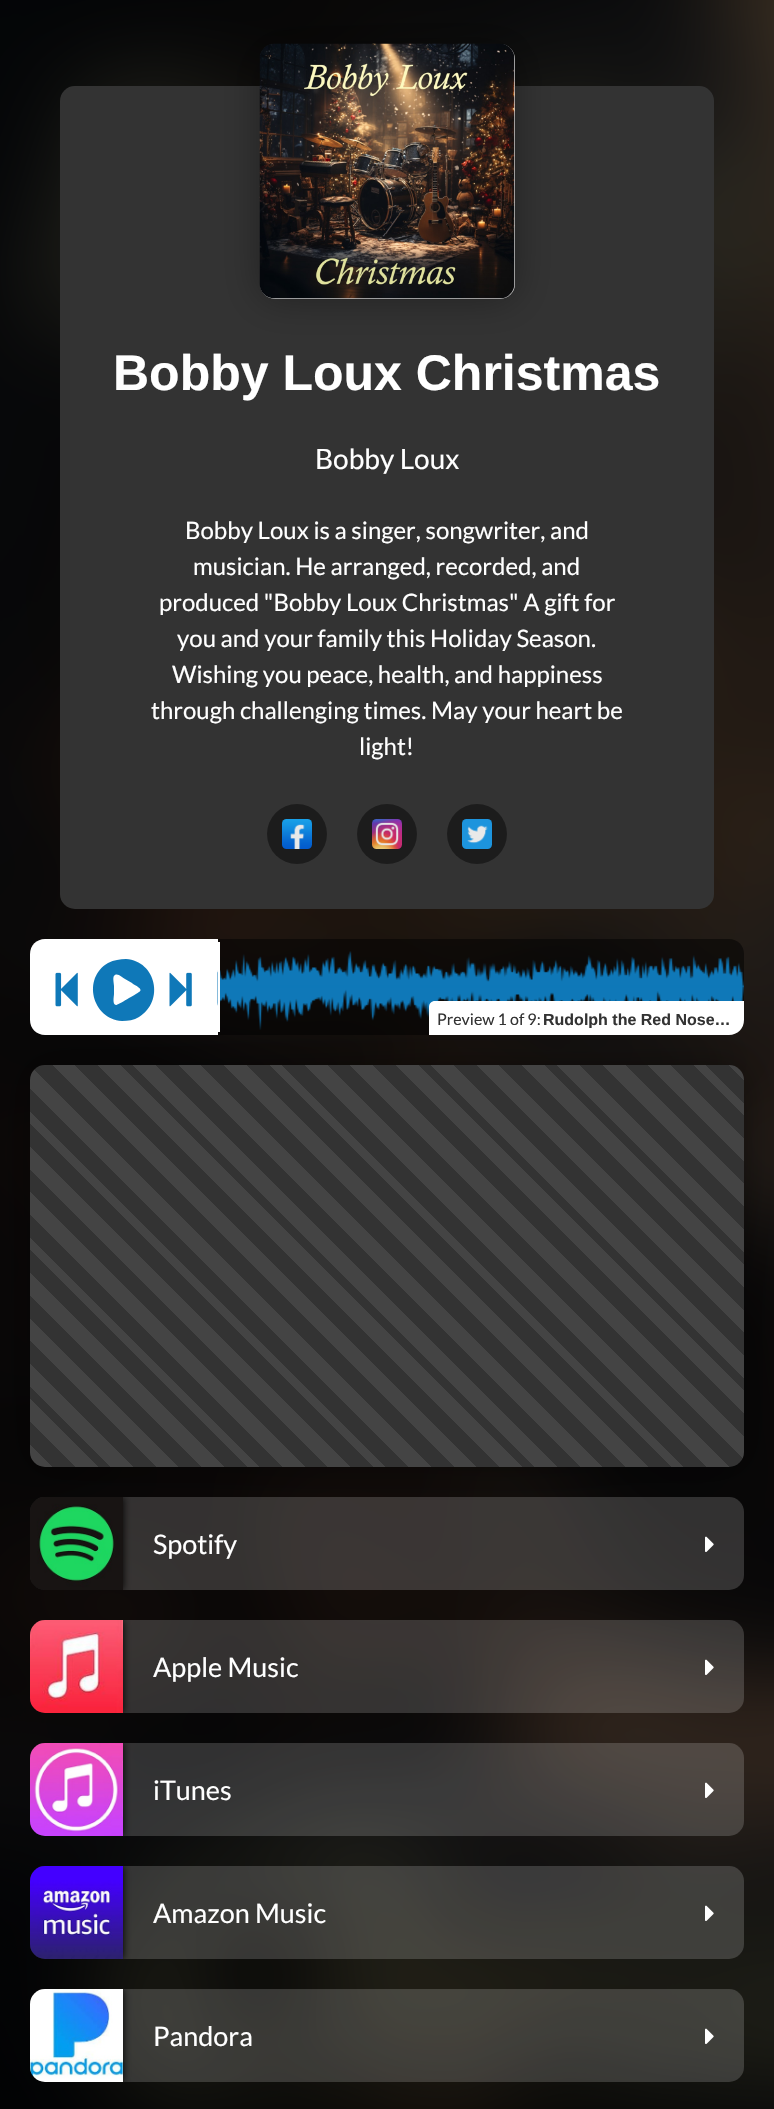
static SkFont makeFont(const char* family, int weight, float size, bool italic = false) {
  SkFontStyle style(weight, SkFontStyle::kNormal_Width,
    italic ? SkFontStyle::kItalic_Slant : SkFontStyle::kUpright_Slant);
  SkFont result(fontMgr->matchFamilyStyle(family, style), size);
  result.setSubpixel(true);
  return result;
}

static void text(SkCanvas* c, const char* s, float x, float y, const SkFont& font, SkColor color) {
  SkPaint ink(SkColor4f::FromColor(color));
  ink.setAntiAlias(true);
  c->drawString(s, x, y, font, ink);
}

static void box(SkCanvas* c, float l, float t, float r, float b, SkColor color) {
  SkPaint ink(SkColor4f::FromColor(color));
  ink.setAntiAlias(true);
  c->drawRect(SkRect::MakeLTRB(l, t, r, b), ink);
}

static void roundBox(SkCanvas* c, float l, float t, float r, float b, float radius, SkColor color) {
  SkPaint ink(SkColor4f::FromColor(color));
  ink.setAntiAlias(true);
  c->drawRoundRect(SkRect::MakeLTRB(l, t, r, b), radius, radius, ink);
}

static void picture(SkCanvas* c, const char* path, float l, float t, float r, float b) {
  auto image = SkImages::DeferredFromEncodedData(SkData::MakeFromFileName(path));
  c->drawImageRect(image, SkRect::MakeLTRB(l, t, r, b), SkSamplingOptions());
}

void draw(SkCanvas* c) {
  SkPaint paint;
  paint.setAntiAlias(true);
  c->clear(0xff000000);
  picture(c, "img_01.png", 0, 0, 774, 2109);
  roundBox(c, 60, 86, 714, 909, 15, 0xff333333);
  paint.setColor(0x59000000);
  paint.setMaskFilter(SkMaskFilter::MakeBlur(kNormal_SkBlurStyle, 19));
  c->drawRoundRect(SkRect::MakeLTRB(260, 44, 515, 299), 15, 15, paint);
  paint.setMaskFilter(nullptr);
  roundBox(c, 260, 44, 515, 299, 15, 0xffcccccc);
  picture(c, "img_02.png", 259, 43, 515, 299);
  SkFont face1 = makeFont("Liberation Sans", 700, 50);
  text(c, "Bobby Loux Christmas", 113, 390, face1, 0xffffffff);
  SkFont face2 = makeFont("Lato", 400, 28);
  text(c, "Bobby Loux", 315, 469, face2, 0xffffffff);
  SkFont face3 = makeFont("Lato", 400, 24);
  text(c, "Bobby Loux is a singer, songwriter, and", 185, 539, face3, 0xffffffff);
  text(c, "musician. He arranged, recorded, and", 193, 575, face3, 0xffffffff);
  text(c, "produced \"Bobby Loux Christmas\" A gift for", 159, 611, face3, 0xffffffff);
  text(c, "you and your family this Holiday Season.", 177, 647, face3, 0xffffffff);
  text(c, "Wishing you peace, health, and happiness", 172, 683, face3, 0xffffffff);
  text(c, "through challenging times. May your heart be", 151, 719, face3, 0xffffffff);
  text(c, "light!", 359, 755, face3, 0xffffffff);
  paint.setColor(0xff1c1c1c);
  c->drawCircle(297, 834, 30, paint);
  picture(c, "img_03.png", 282, 819, 312, 849);
  c->drawCircle(387, 834, 30, paint);
  picture(c, "img_04.png", 372, 819, 402, 849);
  c->drawCircle(477, 834, 30, paint);
  picture(c, "img_05.png", 462, 819, 492, 849);
  paint.setColor(0x59000000);
  paint.setMaskFilter(SkMaskFilter::MakeBlur(kNormal_SkBlurStyle, 19));
  c->drawRoundRect(SkRect::MakeLTRB(30, 1065, 744, 1467), 15, 15, paint);
  paint.setMaskFilter(nullptr);
  {
    const SkColor colors[] = {0xff444444, 0xff444444, 0xff333333, 0xff333333, 0xff444444, 0xff444444, 0xff333333, 0xff333333, 0xff444444, 0xff444444, 0xff333333, 0xff333333, 0xff444444, 0xff444444, 0xff333333, 0xff333333, 0xff444444, 0xff444444, 0xff333333, 0xff333333, 0xff444444, 0xff444444, 0xff333333, 0xff333333, 0xff444444, 0xff444444, 0xff333333, 0xff333333, 0xff444444, 0xff444444, 0xff333333, 0xff333333, 0xff444444, 0xff444444, 0xff333333, 0xff333333, 0xff444444, 0xff444444, 0xff333333, 0xff333333, 0xff444444, 0xff444444, 0xff333333, 0xff333333, 0xff444444, 0xff444444, 0xff333333, 0xff333333, 0xff444444, 0xff444444, 0xff333333, 0xff333333, 0xff444444, 0xff444444, 0xff333333, 0xff333333, 0xff444444, 0xff444444, 0xff333333, 0xff333333, 0xff444444, 0xff444444, 0xff333333, 0xff333333, 0xff444444, 0xff444444, 0xff333333, 0xff333333, 0xff444444, 0xff444444, 0xff333333, 0xff333333, 0xff444444, 0xff444444, 0xff333333, 0xff333333, 0xff444444, 0xff444444, 0xff333333, 0xff333333, 0xff444444, 0xff444444, 0xff333333, 0xff333333, 0xff444444, 0xff444444, 0xff333333, 0xff333333, 0xff444444, 0xff444444, 0xff333333, 0xff333333, 0xff444444, 0xff444444, 0xff333333, 0xff333333, 0xff444444, 0xff444444, 0xff333333, 0xff333333, 0xff444444, 0xff444444, 0xff333333, 0xff333333, 0xff444444, 0xff444444, 0xff333333, 0xff333333};
    const float stops[] = {0, 0.02f, 0.02f, 0.04f, 0.04f, 0.06f, 0.06f, 0.07f, 0.07f, 0.09f, 0.09f, 0.11f, 0.11f, 0.13f, 0.13f, 0.15f, 0.15f, 0.17f, 0.17f, 0.19f, 0.19f, 0.2f, 0.2f, 0.22f, 0.22f, 0.24f, 0.24f, 0.26f, 0.26f, 0.28f, 0.28f, 0.3f, 0.3f, 0.31f, 0.31f, 0.33f, 0.33f, 0.35f, 0.35f, 0.37f, 0.37f, 0.39f, 0.39f, 0.41f, 0.41f, 0.43f, 0.43f, 0.44f, 0.44f, 0.46f, 0.46f, 0.48f, 0.48f, 0.5f, 0.5f, 0.52f, 0.52f, 0.54f, 0.54f, 0.56f, 0.56f, 0.57f, 0.57f, 0.59f, 0.59f, 0.61f, 0.61f, 0.63f, 0.63f, 0.65f, 0.65f, 0.67f, 0.67f, 0.69f, 0.69f, 0.7f, 0.7f, 0.72f, 0.72f, 0.74f, 0.74f, 0.76f, 0.76f, 0.78f, 0.78f, 0.8f, 0.8f, 0.81f, 0.81f, 0.83f, 0.83f, 0.85f, 0.85f, 0.87f, 0.87f, 0.89f, 0.89f, 0.91f, 0.91f, 0.93f, 0.93f, 0.94f, 0.94f, 0.96f, 0.96f, 0.98f, 0.98f, 1};
    const SkPoint ends[] = {{108, 1545}, {681, 972}};
    paint.setShader(SkGradientShader::MakeLinear(ends, colors, stops, 108, SkTileMode::kClamp));
    paint.setAlpha(255);
  }
  c->drawRoundRect(SkRect::MakeLTRB(30, 1065, 744, 1467), 15, 15, paint);
  paint.setShader(nullptr);
  paint.setColor(0xffffffff);
  c->drawPath(SkPathBuilder().moveTo(45, 939).lineTo(218, 939).lineTo(218, 1035).lineTo(45, 1035).cubicTo(36.5f, 1035, 30, 1028.5f, 30, 1020).lineTo(30, 954).cubicTo(30, 945.5f, 36.5f, 939, 45, 939).close().detach(), paint);
  picture(c, "img_06.png", 55, 972, 78, 1007);
  paint.setColor(0xff0f78b8);
  c->drawPath(SkPathBuilder().moveTo(108, 963).cubicTo(114, 960, 120, 959, 126, 959).cubicTo(156, 961, 165, 1001, 139, 1017).cubicTo(134, 1020, 128, 1021, 122, 1021).cubicTo(92, 1019, 82, 978, 108, 963).close().moveTo(139, 992).cubicTo(145, 989, 132, 984, 132, 983).lineTo(125, 979).cubicTo(123, 978, 118, 973, 115, 975).cubicTo(112, 976, 114, 983, 114, 986).lineTo(114, 994).cubicTo(114, 996, 112, 1005, 116, 1005).cubicTo(118, 1005, 136, 994, 139, 992).close().detach(), paint);
  picture(c, "img_07.png", 169, 972, 192, 1007);
  paint.setColor(0x80000000);
  c->drawPath(SkPathBuilder().moveTo(218, 939).lineTo(729, 939).cubicTo(737.5f, 939, 744, 945.5f, 744, 954).lineTo(744, 1020).cubicTo(744, 1028.5f, 737.5f, 1035, 729, 1035).lineTo(218, 1035).close().detach(), paint);
  picture(c, "img_08.png", 217, 951, 744, 1030);
  box(c, 218, 942, 220, 1032, 0xffffffff);
  paint.setColor(0xffffffff);
  c->drawPath(SkPathBuilder().moveTo(435, 1001).lineTo(744, 1001).lineTo(744, 1020).cubicTo(744, 1028.5f, 737.5f, 1035, 729, 1035).lineTo(429, 1035).lineTo(429, 1007).cubicTo(429, 1003.5f, 431.5f, 1001, 435, 1001).close().detach(), paint);
  SkFont face4 = makeFont("Lato", 400, 16);
  text(c, "Preview 1 of 9:", 437, 1025, face4, 0xff333333);
  c->save();
  c->clipRect(SkRect::MakeLTRB(437, 1008, 737, 1028));
  SkFont face5 = makeFont("Liberation Sans", 700, 16);
  text(c, "Rudolph the Red Nose…", 543, 1025, face5, 0xff333333);
  c->restore();
  roundBox(c, 30, 1497, 744, 1590, 15, 0x2bffffff);
  c->save();
  c->clipPath(SkPathBuilder().moveTo(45, 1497).lineTo(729, 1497).cubicTo(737.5f, 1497, 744, 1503.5f, 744, 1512).lineTo(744, 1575).cubicTo(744, 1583.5f, 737.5f, 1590, 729, 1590).lineTo(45, 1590).cubicTo(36.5f, 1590, 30, 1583.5f, 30, 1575).lineTo(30, 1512).cubicTo(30, 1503.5f, 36.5f, 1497, 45, 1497).close().detach(), true);
  paint.setColor(0xff000000);
  paint.setMaskFilter(SkMaskFilter::MakeBlur(kNormal_SkBlurStyle, 4));
  c->drawRect(SkRect::MakeLTRB(30, 1497, 123, 1590), paint);
  paint.setMaskFilter(nullptr);
  c->restore();
  picture(c, "img_09.png", 30, 1497, 123, 1590);
  SkFont face6 = makeFont("Lato", 400, 27);
  text(c, "Spotify", 153, 1554, face6, 0xffffffff);
  picture(c, "img_10.png", 705, 1536, 714, 1552);
  roundBox(c, 30, 1620, 744, 1713, 15, 0x2bffffff);
  c->save();
  c->clipPath(SkPathBuilder().moveTo(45, 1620).lineTo(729, 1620).cubicTo(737.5f, 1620, 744, 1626.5f, 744, 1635).lineTo(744, 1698).cubicTo(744, 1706.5f, 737.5f, 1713, 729, 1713).lineTo(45, 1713).cubicTo(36.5f, 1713, 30, 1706.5f, 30, 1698).lineTo(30, 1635).cubicTo(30, 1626.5f, 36.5f, 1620, 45, 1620).close().detach(), true);
  paint.setMaskFilter(SkMaskFilter::MakeBlur(kNormal_SkBlurStyle, 4));
  c->drawRect(SkRect::MakeLTRB(30, 1620, 123, 1713), paint);
  paint.setMaskFilter(nullptr);
  c->restore();
  picture(c, "img_11.png", 30, 1620, 123, 1713);
  text(c, "Apple Music", 153, 1677, face6, 0xffffffff);
  picture(c, "img_12.png", 705, 1659, 714, 1675);
  roundBox(c, 30, 1743, 744, 1836, 15, 0x2bffffff);
  c->save();
  c->clipPath(SkPathBuilder().moveTo(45, 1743).lineTo(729, 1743).cubicTo(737.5f, 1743, 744, 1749.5f, 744, 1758).lineTo(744, 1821).cubicTo(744, 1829.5f, 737.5f, 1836, 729, 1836).lineTo(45, 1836).cubicTo(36.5f, 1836, 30, 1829.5f, 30, 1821).lineTo(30, 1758).cubicTo(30, 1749.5f, 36.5f, 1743, 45, 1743).close().detach(), true);
  paint.setMaskFilter(SkMaskFilter::MakeBlur(kNormal_SkBlurStyle, 4));
  c->drawRect(SkRect::MakeLTRB(30, 1743, 123, 1836), paint);
  paint.setMaskFilter(nullptr);
  c->restore();
  picture(c, "img_13.png", 30, 1743, 123, 1836);
  text(c, "iTunes", 153, 1800, face6, 0xffffffff);
  picture(c, "img_14.png", 705, 1782, 714, 1798);
  roundBox(c, 30, 1866, 744, 1959, 15, 0x2bffffff);
  c->save();
  c->clipPath(SkPathBuilder().moveTo(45, 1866).lineTo(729, 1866).cubicTo(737.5f, 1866, 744, 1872.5f, 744, 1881).lineTo(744, 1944).cubicTo(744, 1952.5f, 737.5f, 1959, 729, 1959).lineTo(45, 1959).cubicTo(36.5f, 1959, 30, 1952.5f, 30, 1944).lineTo(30, 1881).cubicTo(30, 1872.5f, 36.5f, 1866, 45, 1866).close().detach(), true);
  paint.setMaskFilter(SkMaskFilter::MakeBlur(kNormal_SkBlurStyle, 4));
  c->drawRect(SkRect::MakeLTRB(30, 1866, 123, 1959), paint);
  paint.setMaskFilter(nullptr);
  c->restore();
  picture(c, "img_15.png", 30, 1866, 123, 1959);
  text(c, "Amazon Music", 153, 1923, face6, 0xffffffff);
  picture(c, "img_16.png", 705, 1905, 714, 1921);
  roundBox(c, 30, 1989, 744, 2082, 15, 0x2bffffff);
  c->save();
  c->clipPath(SkPathBuilder().moveTo(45, 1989).lineTo(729, 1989).cubicTo(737.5f, 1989, 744, 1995.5f, 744, 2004).lineTo(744, 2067).cubicTo(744, 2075.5f, 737.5f, 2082, 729, 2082).lineTo(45, 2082).cubicTo(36.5f, 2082, 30, 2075.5f, 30, 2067).lineTo(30, 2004).cubicTo(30, 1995.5f, 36.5f, 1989, 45, 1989).close().detach(), true);
  paint.setMaskFilter(SkMaskFilter::MakeBlur(kNormal_SkBlurStyle, 4));
  c->drawRect(SkRect::MakeLTRB(30, 1989, 123, 2082), paint);
  paint.setMaskFilter(nullptr);
  c->restore();
  picture(c, "img_17.png", 30, 1989, 123, 2082);
  text(c, "Pandora", 153, 2046, face6, 0xffffffff);
  picture(c, "img_18.png", 705, 2028, 714, 2044);
}
